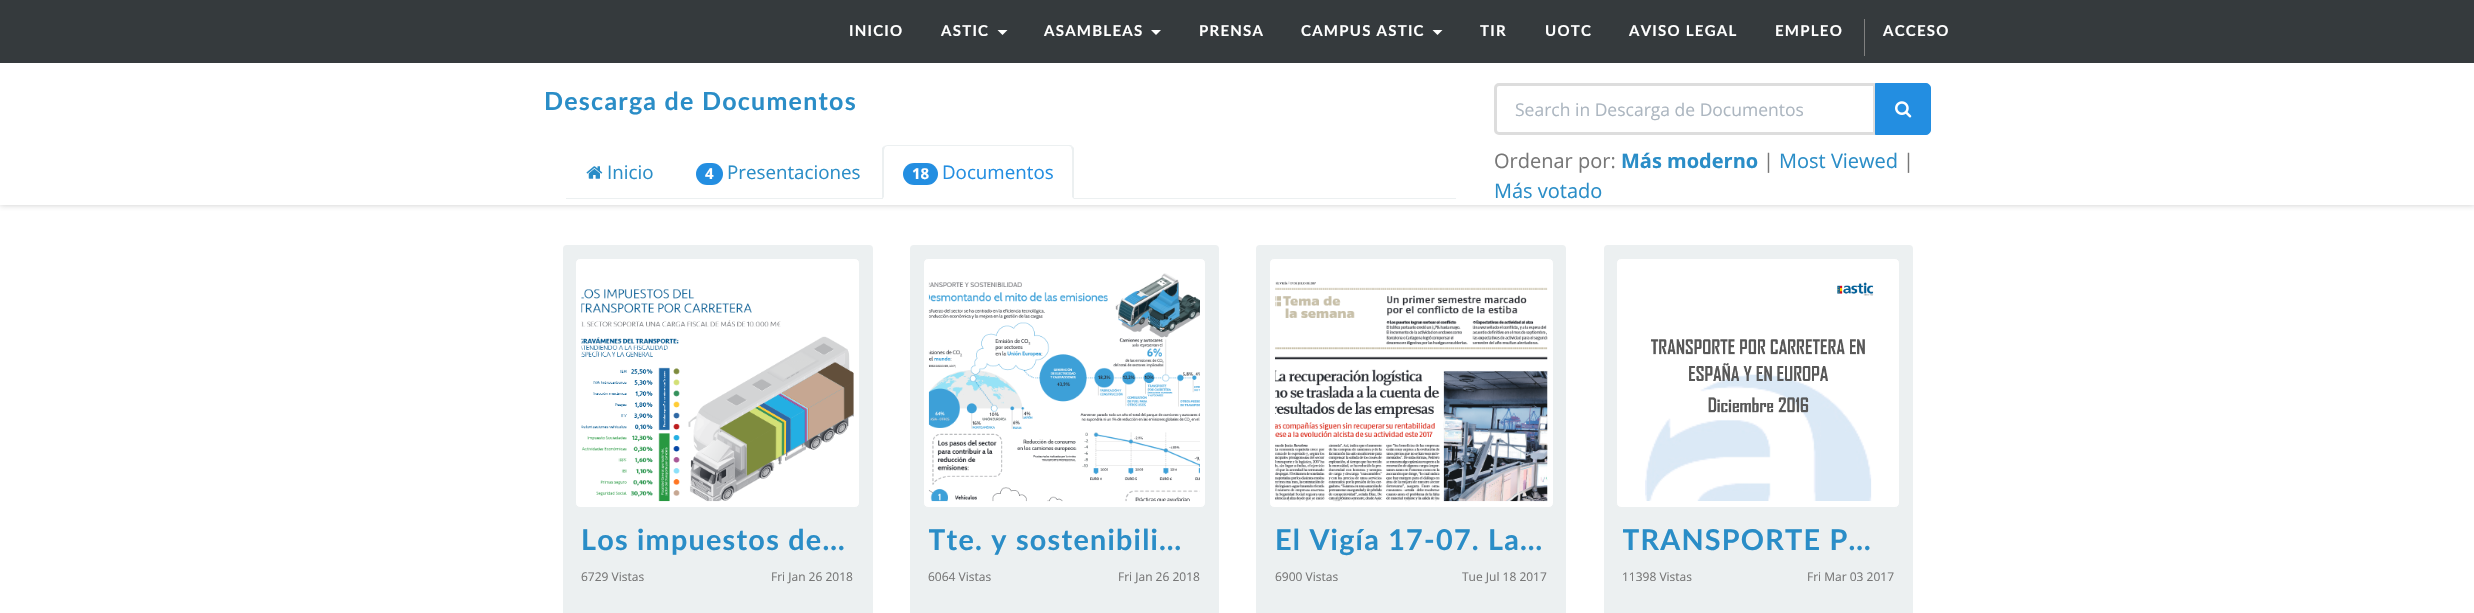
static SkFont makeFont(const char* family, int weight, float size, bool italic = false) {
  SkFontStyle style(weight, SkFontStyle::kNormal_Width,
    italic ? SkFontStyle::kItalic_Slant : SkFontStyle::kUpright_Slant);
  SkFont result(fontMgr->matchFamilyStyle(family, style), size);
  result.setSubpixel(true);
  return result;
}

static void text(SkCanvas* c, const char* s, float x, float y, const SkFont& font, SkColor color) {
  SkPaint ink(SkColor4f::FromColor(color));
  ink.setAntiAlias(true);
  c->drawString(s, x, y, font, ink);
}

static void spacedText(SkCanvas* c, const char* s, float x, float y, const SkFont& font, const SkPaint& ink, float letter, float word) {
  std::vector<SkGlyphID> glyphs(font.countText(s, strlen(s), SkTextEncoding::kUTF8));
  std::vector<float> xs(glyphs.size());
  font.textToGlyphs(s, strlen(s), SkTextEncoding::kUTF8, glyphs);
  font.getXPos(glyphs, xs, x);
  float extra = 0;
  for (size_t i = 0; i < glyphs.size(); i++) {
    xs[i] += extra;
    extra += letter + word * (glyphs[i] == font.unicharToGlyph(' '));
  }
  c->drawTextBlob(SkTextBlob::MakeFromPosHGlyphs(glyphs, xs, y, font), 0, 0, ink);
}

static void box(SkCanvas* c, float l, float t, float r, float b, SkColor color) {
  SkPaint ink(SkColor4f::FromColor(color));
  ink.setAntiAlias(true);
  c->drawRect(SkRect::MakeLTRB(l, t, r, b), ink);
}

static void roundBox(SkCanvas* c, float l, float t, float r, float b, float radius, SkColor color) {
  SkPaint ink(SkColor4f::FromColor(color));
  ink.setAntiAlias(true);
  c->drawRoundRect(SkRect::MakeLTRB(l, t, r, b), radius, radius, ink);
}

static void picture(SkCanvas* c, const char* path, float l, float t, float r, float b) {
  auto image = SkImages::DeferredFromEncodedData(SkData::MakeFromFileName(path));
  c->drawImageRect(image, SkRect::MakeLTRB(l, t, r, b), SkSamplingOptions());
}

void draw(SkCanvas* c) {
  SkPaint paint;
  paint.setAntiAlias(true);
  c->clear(0xffffffff);
  c->save();
  c->clipRect(SkRect::MakeLTRB(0, 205, 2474, 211));
  paint.setColor(0xffcccccc);
  paint.setMaskFilter(SkMaskFilter::MakeBlur(kNormal_SkBlurStyle, 3));
  c->drawRect(SkRect::MakeLTRB(0, 63, 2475, 205), paint);
  paint.setMaskFilter(nullptr);
  c->restore();
  box(c, 0, 0, 2474, 63, 0xff353a3d);
  SkFont face1 = makeFont("Lato", 700, 15);
  paint.setColor(0xffffffff);
  spacedText(c, "INICIO", 849, 36, face1, paint, 1.25f, 0);
  spacedText(c, "ASTIC", 941, 36, face1, paint, 1.25f, 0);
  c->drawPath(SkPathBuilder().moveTo(997.5f, 30).lineTo(1007.5f, 30).lineTo(1002.5f, 35).close().detach(), paint);
  spacedText(c, "ASAMBLEAS", 1044, 36, face1, paint, 1.25f, 0);
  c->drawPath(SkPathBuilder().moveTo(1151, 30).lineTo(1161, 30).lineTo(1156, 35).close().detach(), paint);
  spacedText(c, "PRENSA", 1199, 36, face1, paint, 1.25f, 0);
  spacedText(c, "CAMPUS ASTIC", 1301, 36, face1, paint, 1.25f, 0);
  c->drawPath(SkPathBuilder().moveTo(1432.5f, 30).lineTo(1442.5f, 30).lineTo(1437.5f, 35).close().detach(), paint);
  spacedText(c, "TIR", 1480, 36, face1, paint, 1.25f, 0);
  spacedText(c, "UOTC", 1545, 36, face1, paint, 1.25f, 0);
  spacedText(c, "AVISO LEGAL", 1629, 36, face1, paint, 1.25f, 0);
  spacedText(c, "EMPLEO", 1775, 36, face1, paint, 1.25f, 0);
  box(c, 1864, 19, 1865, 56, 0xff808080);
  spacedText(c, "ACCESO", 1883, 36, face1, paint, 1.25f, 0);
  SkFont face2 = makeFont("Lato", 700, 25);
  paint.setColor(0xff2a8dc7);
  spacedText(c, "Descarga de Documentos", 544, 110, face2, paint, 1.25f, 0);
  paint.setStyle(SkPaint::kStroke_Style);
  paint.setStrokeWidth(3);
  paint.setColor(0xffdddddd);
  c->drawPath(SkPathBuilder().moveTo(1499, 84.5f).lineTo(1874.5f, 84.5f).lineTo(1874.5f, 133.5f).lineTo(1499, 133.5f).cubicTo(1497, 133.5f, 1495.5f, 132, 1495.5f, 130).lineTo(1495.5f, 88).cubicTo(1495.5f, 86, 1497, 84.5f, 1499, 84.5f).close().detach(), paint);
  SkFont face3 = makeFont("Open Sans", 400, 17.5f);
  text(c, "Search in Descarga de Documentos", 1515, 116, face3, 0xffacb6c0);
  paint.setStyle(SkPaint::kFill_Style);
  paint.setColor(0xff238ee1);
  c->drawPath(SkPathBuilder().moveTo(1875.5f, 83.5f).lineTo(1926, 83.5f).cubicTo(1928.5f, 83.5f, 1930.5f, 85.5f, 1930.5f, 88).lineTo(1930.5f, 130).cubicTo(1930.5f, 132.5f, 1928.5f, 134.5f, 1926, 134.5f).lineTo(1875.5f, 134.5f).close().detach(), paint);
  paint.setStyle(SkPaint::kStroke_Style);
  paint.setStrokeWidth(1);
  c->drawPath(SkPathBuilder().moveTo(1875.5f, 83.5f).lineTo(1926, 83.5f).cubicTo(1928.5f, 83.5f, 1930.5f, 85.5f, 1930.5f, 88).lineTo(1930.5f, 130).cubicTo(1930.5f, 132.5f, 1928.5f, 134.5f, 1926, 134.5f).lineTo(1875.5f, 134.5f).close().detach(), paint);
  picture(c, "img_01.png", 1895, 101, 1912, 118);
  box(c, 566, 198, 1456, 199, 0xffecf0f1);
  picture(c, "img_02.png", 586, 166, 603, 179);
  SkFont face4 = makeFont("Open Sans", 400, 18.75f);
  text(c, "Inicio", 607, 179, face4, 0xff2a8dc7);
  roundBox(c, 696, 163, 723, 185, 11, 0xff238ee1);
  SkFont face5 = makeFont("Open Sans", 700, 15);
  text(c, "4", 705, 179, face5, 0xffffffff);
  text(c, "Presentaciones", 727, 179, face4, 0xff2a8dc7);
  paint.setStyle(SkPaint::kFill_Style);
  paint.setColor(0xffffffff);
  c->drawPath(SkPathBuilder().moveTo(888, 145).lineTo(1069, 145).cubicTo(1072, 145, 1074, 147, 1074, 150).lineTo(1074, 199).lineTo(883, 199).lineTo(883, 150).cubicTo(883, 147, 885, 145, 888, 145).close().detach(), paint);
  paint.setColor(0xffecf0f1);
  c->drawPath(SkPathBuilder().moveTo(888, 145).cubicTo(886, 145, 885, 146, 884, 146).lineTo(885, 147).lineTo(887, 146).lineTo(1069, 146).cubicTo(1070, 146, 1071, 147, 1071, 147).lineTo(1072, 146).cubicTo(1072, 145, 1070, 145, 1069, 145).close().detach(), paint);
  c->drawPath(SkPathBuilder().moveTo(1072, 146).lineTo(1074, 148).lineTo(1074, 199).lineTo(1072, 197).lineTo(1072, 150).lineTo(1071, 147).close().detach(), paint);
  c->drawPath(SkPathBuilder().moveTo(882, 199).lineTo(882, 148).lineTo(884, 146).lineTo(885, 147).lineTo(884, 150).lineTo(884, 197).close().detach(), paint);
  roundBox(c, 903, 163, 938, 185, 11, 0xff238ee1);
  text(c, "18", 912, 179, face5, 0xffffffff);
  text(c, "Documentos", 942, 179, face4, 0xff238ee1);
  SkFont face6 = makeFont("Open Sans", 400, 20);
  text(c, "Ordenar por:", 1494, 168, face6, 0xff777777);
  SkFont face7 = makeFont("Open Sans", 700, 20);
  text(c, "Más moderno", 1621, 168, face7, 0xff2a8dc7);
  text(c, "|", 1763, 168, face6, 0xff777777);
  text(c, "Most Viewed", 1779, 168, face6, 0xff2a8dc7);
  text(c, "|", 1903, 168, face6, 0xff777777);
  text(c, "Más votado", 1494, 198, face6, 0xff2a8dc7);
  roundBox(c, 563, 245, 873, 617, 4, 0xffecf0f1);
  paint.setColor(0xffffffff);
  c->drawRoundRect(SkRect::MakeLTRB(575.5f, 258.5f, 859.5f, 507.5f), 4.5f, 4.5f, paint);
  paint.setStyle(SkPaint::kStroke_Style);
  paint.setColor(0xffecf0f1);
  c->drawRoundRect(SkRect::MakeLTRB(575.5f, 258.5f, 859.5f, 507.5f), 4.5f, 4.5f, paint);
  picture(c, "img_03.png", 581, 289, 854, 502);
  SkFont face8 = makeFont("Lato", 700, 28.75f);
  paint.setStyle(SkPaint::kFill_Style);
  paint.setColor(0xff2a8dc7);
  spacedText(c, "Los impuestos de…", 581, 550, face8, paint, 1.25f, 0);
  SkFont face9 = makeFont("Open Sans", 400, 12);
  text(c, "6729 Vistas", 581, 581, face9, 0xff777777);
  text(c, "Fri Jan 26 2018", 771, 581, face9, 0xff777777);
  roundBox(c, 910, 245, 1219, 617, 4, 0xffecf0f1);
  paint.setColor(0xffffffff);
  c->drawRoundRect(SkRect::MakeLTRB(923.5f, 258.5f, 1205.5f, 507.5f), 4.5f, 4.5f, paint);
  paint.setStyle(SkPaint::kStroke_Style);
  paint.setColor(0xffecf0f1);
  c->drawRoundRect(SkRect::MakeLTRB(923.5f, 258.5f, 1205.5f, 507.5f), 4.5f, 4.5f, paint);
  picture(c, "img_04.png", 928, 273, 1200, 502);
  c->save();
  c->clipRect(SkRect::MakeLTRB(929, 519, 1200, 559));
  paint.setStyle(SkPaint::kFill_Style);
  paint.setColor(0xff2a8dc7);
  spacedText(c, "Tte. y sostenibili…", 928, 550, face8, paint, 1.25f, 0);
  c->restore();
  text(c, "6064 Vistas", 928, 581, face9, 0xff777777);
  text(c, "Fri Jan 26 2018", 1118, 581, face9, 0xff777777);
  roundBox(c, 1256, 245, 1566, 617, 4, 0xffecf0f1);
  paint.setColor(0xffffffff);
  c->drawRoundRect(SkRect::MakeLTRB(1269.5f, 258.5f, 1553.5f, 507.5f), 4.5f, 4.5f, paint);
  paint.setStyle(SkPaint::kStroke_Style);
  paint.setColor(0xffecf0f1);
  c->drawRoundRect(SkRect::MakeLTRB(1269.5f, 258.5f, 1553.5f, 507.5f), 4.5f, 4.5f, paint);
  picture(c, "img_05.png", 1275, 281, 1548, 502);
  paint.setStyle(SkPaint::kFill_Style);
  paint.setColor(0xff2a8dc7);
  spacedText(c, "El Vigía 17-07. La…", 1275, 550, face8, paint, 1.25f, 0);
  text(c, "6900 Vistas", 1275, 581, face9, 0xff777777);
  text(c, "Tue Jul 18 2017", 1462, 581, face9, 0xff777777);
  roundBox(c, 1604, 245, 1913, 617, 4, 0xffecf0f1);
  paint.setColor(0xffffffff);
  c->drawRoundRect(SkRect::MakeLTRB(1616.5f, 258.5f, 1899.5f, 507.5f), 4.5f, 4.5f, paint);
  paint.setStyle(SkPaint::kStroke_Style);
  paint.setColor(0xffecf0f1);
  c->drawRoundRect(SkRect::MakeLTRB(1616.5f, 258.5f, 1899.5f, 507.5f), 4.5f, 4.5f, paint);
  picture(c, "img_06.png", 1645, 282, 1874, 501);
  c->save();
  c->clipRect(SkRect::MakeLTRB(1623, 519, 1894, 559));
  paint.setStyle(SkPaint::kFill_Style);
  paint.setColor(0xff2a8dc7);
  spacedText(c, "TRANSPORTE P…", 1622, 550, face8, paint, 1.25f, 0);
  c->restore();
  text(c, "11398 Vistas", 1622, 581, face9, 0xff777777);
  text(c, "Fri Mar 03 2017", 1807, 581, face9, 0xff777777);
}
